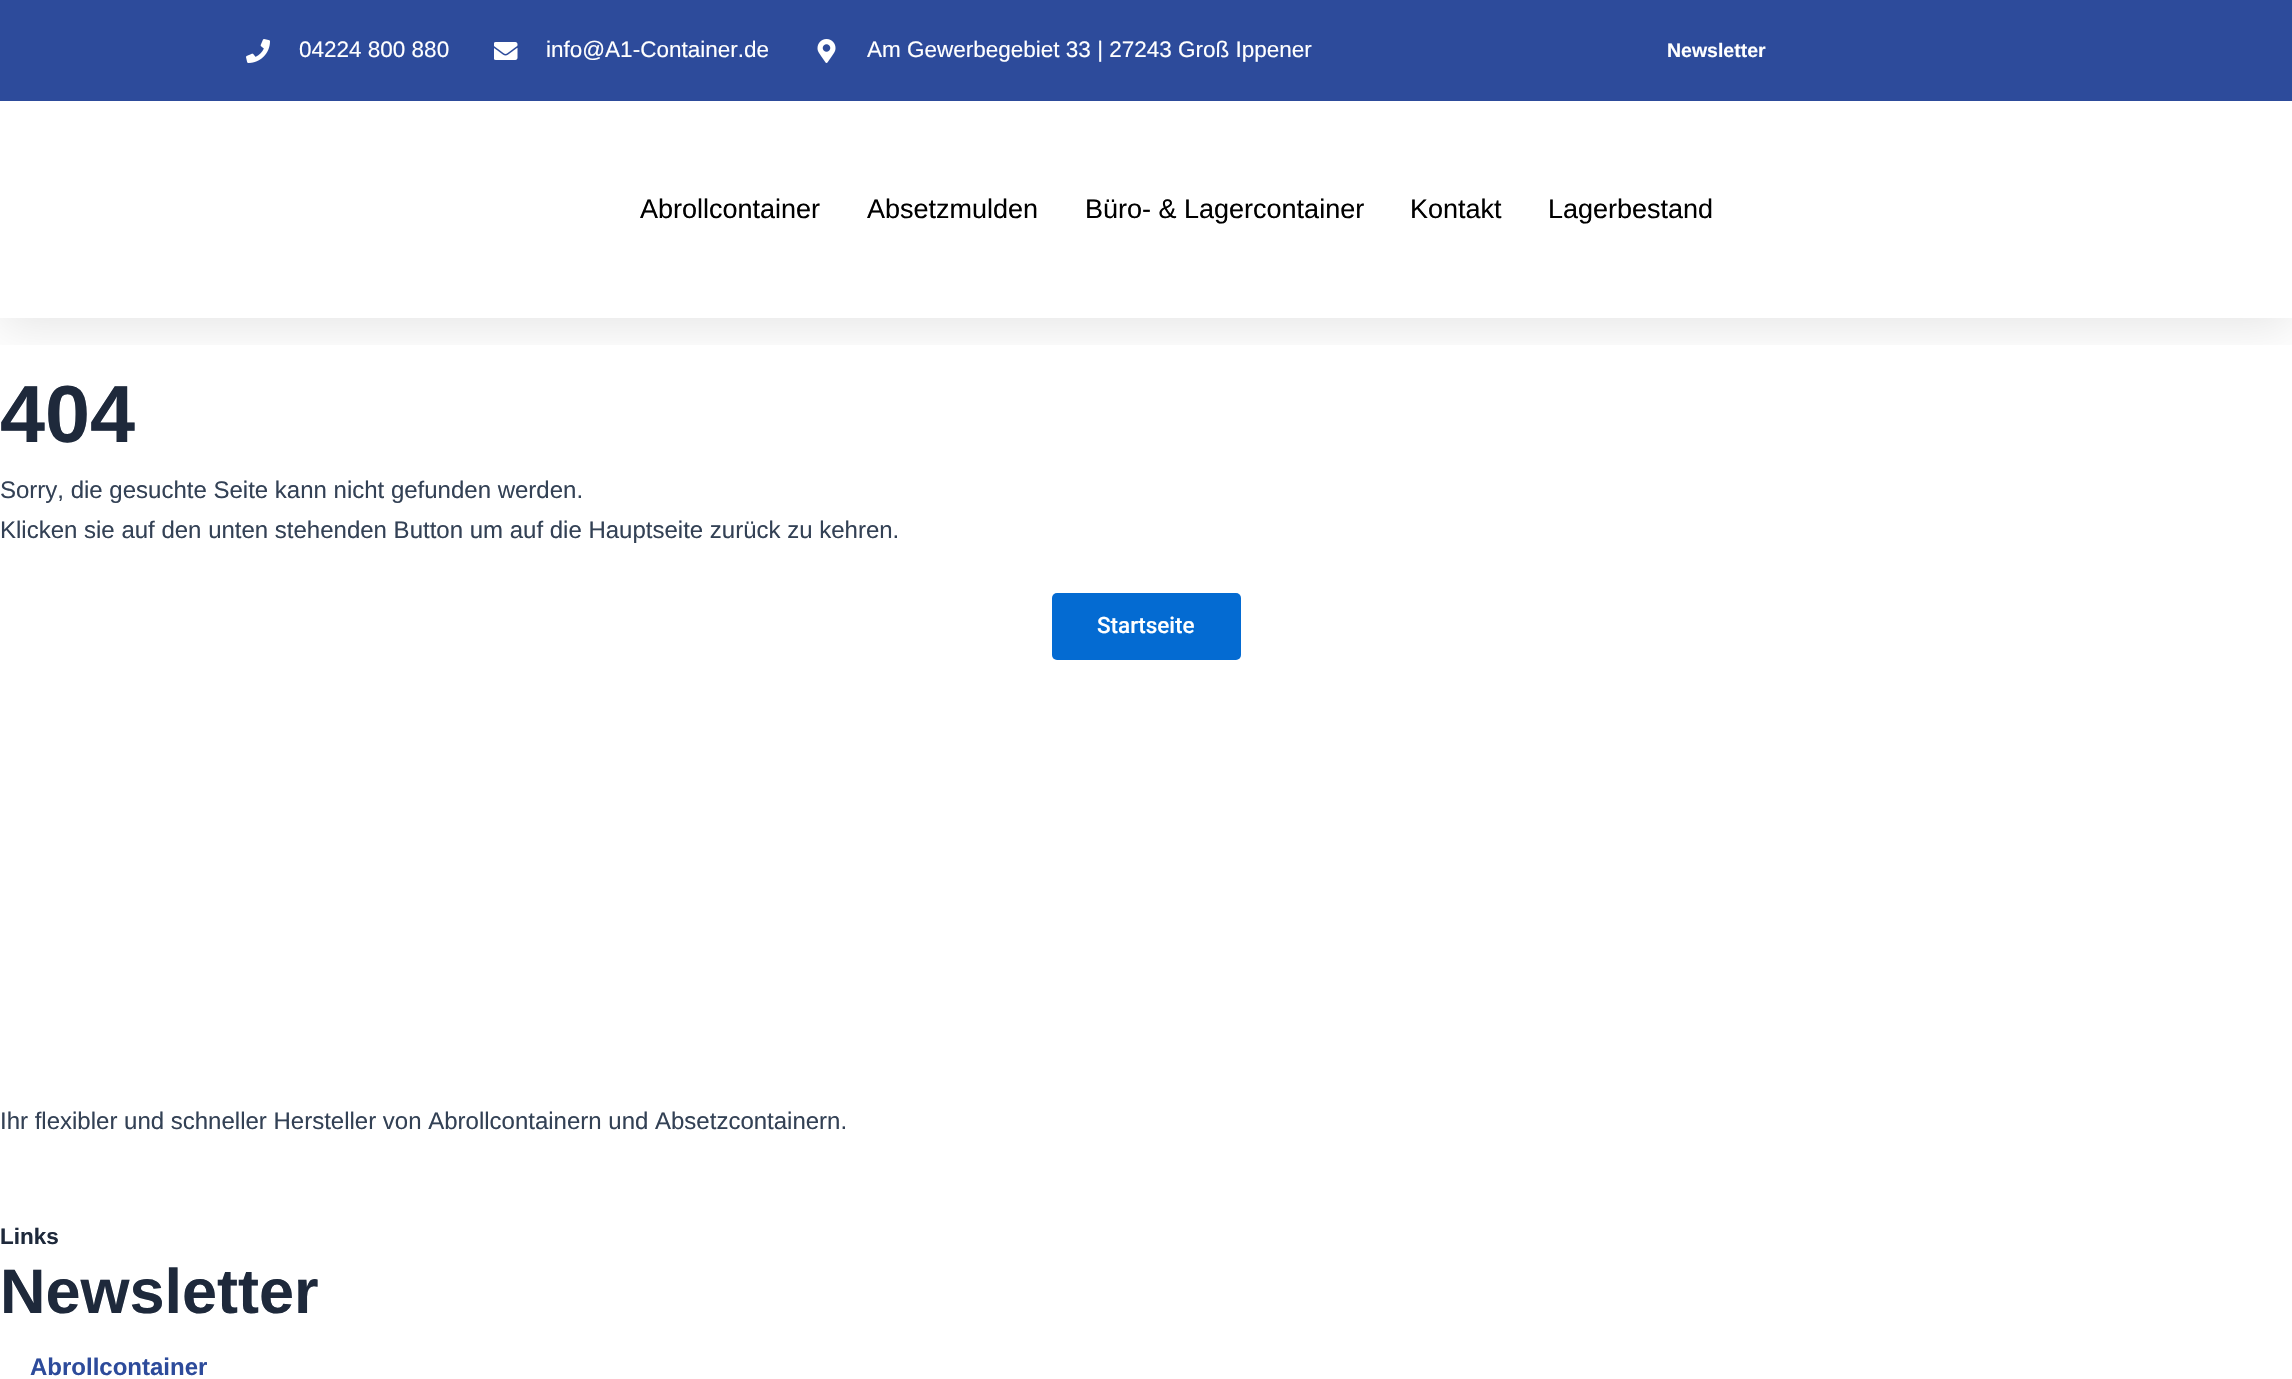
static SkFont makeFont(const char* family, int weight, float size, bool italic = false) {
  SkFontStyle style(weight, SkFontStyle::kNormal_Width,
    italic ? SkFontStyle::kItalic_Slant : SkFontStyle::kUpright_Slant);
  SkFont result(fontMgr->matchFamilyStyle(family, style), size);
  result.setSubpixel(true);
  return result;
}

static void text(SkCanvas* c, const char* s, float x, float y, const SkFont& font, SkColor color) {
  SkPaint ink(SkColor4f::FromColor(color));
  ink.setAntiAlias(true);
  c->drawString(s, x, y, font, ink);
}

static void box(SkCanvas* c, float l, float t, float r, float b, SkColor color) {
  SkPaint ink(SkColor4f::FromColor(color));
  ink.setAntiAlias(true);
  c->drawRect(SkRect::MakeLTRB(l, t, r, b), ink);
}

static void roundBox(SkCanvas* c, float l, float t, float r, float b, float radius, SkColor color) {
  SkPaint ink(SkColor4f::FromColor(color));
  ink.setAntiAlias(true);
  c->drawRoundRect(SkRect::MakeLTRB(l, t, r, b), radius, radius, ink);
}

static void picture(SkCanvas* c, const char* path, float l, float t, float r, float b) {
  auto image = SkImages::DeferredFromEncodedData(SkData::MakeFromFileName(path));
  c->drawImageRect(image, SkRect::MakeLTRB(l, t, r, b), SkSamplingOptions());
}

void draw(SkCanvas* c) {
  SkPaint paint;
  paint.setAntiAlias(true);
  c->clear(0xffffffff);
  c->save();
  c->clipRect(SkRect::MakeLTRB(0, 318, 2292, 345));
  paint.setColor(0x1a000000);
  paint.setMaskFilter(SkMaskFilter::MakeBlur(kNormal_SkBlurStyle, 22.5f));
  c->drawRect(SkRect::MakeLTRB(0, 8, 2292, 326), paint);
  paint.setMaskFilter(nullptr);
  c->restore();
  box(c, 0, 0, 2292, 101, 0xff2d4b9b);
  picture(c, "img_01.png", 246, 39, 270, 63);
  SkFont face1 = makeFont("Liberation Sans", 400, 22.5f);
  text(c, "04224 800 880", 299, 57, face1, 0xffffffff);
  picture(c, "img_02.png", 494, 42, 518, 60);
  text(c, "info@A1-Container.de", 546, 57, face1, 0xffffffff);
  picture(c, "img_03.png", 817, 39, 836, 63);
  text(c, "Am Gewerbegebiet 33 | 27243 Groß Ippener", 867, 57, face1, 0xffffffff);
  SkFont face2 = makeFont("Liberation Sans", 700, 19.5f);
  text(c, "Newsletter", 1667, 57, face2, 0xffffffff);
  SkFont face3 = makeFont("Liberation Sans", 400, 27);
  text(c, "Abrollcontainer", 640, 218, face3, 0xff000000);
  text(c, "Absetzmulden", 867, 218, face3, 0xff000000);
  text(c, "Büro- & Lagercontainer", 1085, 218, face3, 0xff000000);
  text(c, "Kontakt", 1410, 218, face3, 0xff000000);
  text(c, "Lagerbestand", 1548, 218, face3, 0xff000000);
  SkFont face4 = makeFont("Liberation Sans", 700, 81);
  text(c, "404", 0, 442, face4, 0xff1e293b);
  SkFont face5 = makeFont("Liberation Sans", 400, 24);
  text(c, "Sorry, die gesuchte Seite kann nicht gefunden werden.", 0, 498, face5, 0xff334155);
  text(c, "Klicken sie auf den unten stehenden Button um auf die Hauptseite zurück zu kehren.", 0, 538, face5, 0xff334155);
  roundBox(c, 1052, 593, 1241, 660, 5, 0xff046bd2);
  SkFont face6 = makeFont("Roboto", 500, 22.5f);
  text(c, "Startseite", 1097, 633, face6, 0xffffffff);
  text(c, "Ihr flexibler und schneller Hersteller von Abrollcontainern und Absetzcontainern.", 0, 1129, face5, 0xff334155);
  SkFont face7 = makeFont("Liberation Sans", 700, 22.5f);
  text(c, "Links", 0, 1244, face7, 0xff1e293b);
  SkFont face8 = makeFont("Liberation Sans", 700, 63);
  text(c, "Newsletter", 0, 1313, face8, 0xff1e293b);
  SkFont face9 = makeFont("Liberation Sans", 700, 24);
  text(c, "Abrollcontainer", 30, 1375, face9, 0xff2d4b9b);
}
